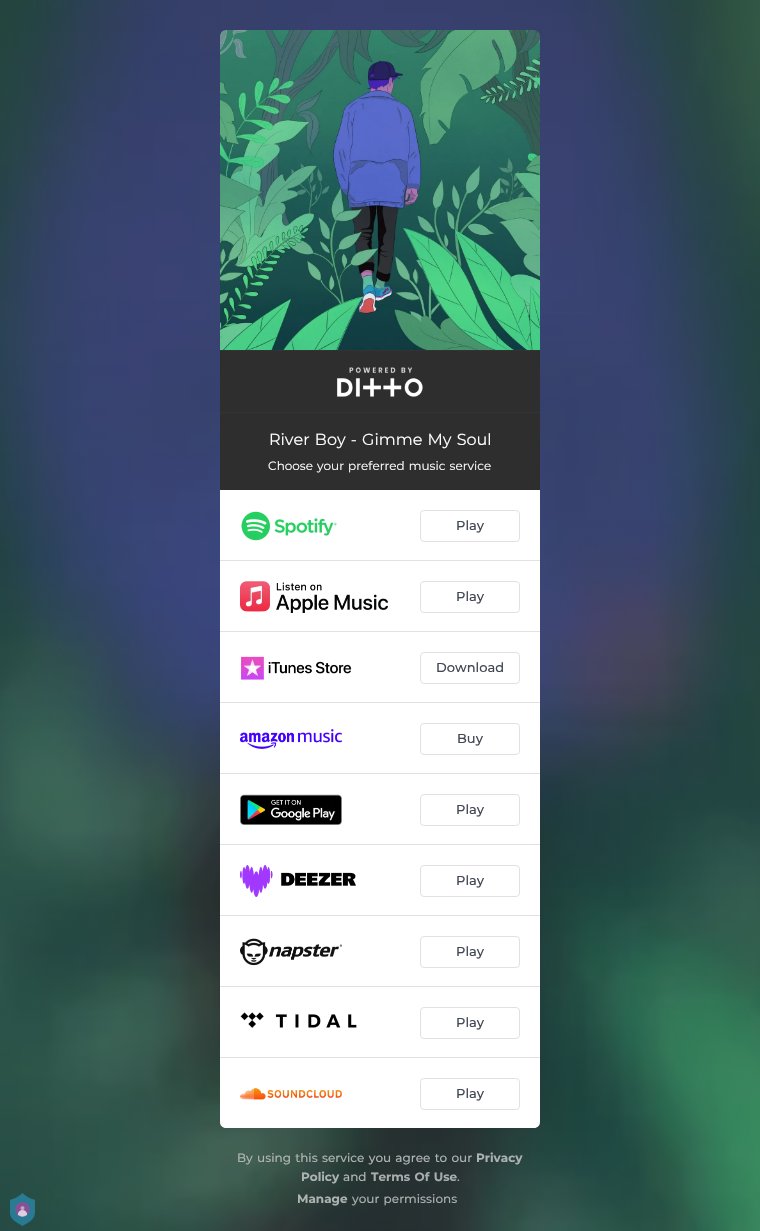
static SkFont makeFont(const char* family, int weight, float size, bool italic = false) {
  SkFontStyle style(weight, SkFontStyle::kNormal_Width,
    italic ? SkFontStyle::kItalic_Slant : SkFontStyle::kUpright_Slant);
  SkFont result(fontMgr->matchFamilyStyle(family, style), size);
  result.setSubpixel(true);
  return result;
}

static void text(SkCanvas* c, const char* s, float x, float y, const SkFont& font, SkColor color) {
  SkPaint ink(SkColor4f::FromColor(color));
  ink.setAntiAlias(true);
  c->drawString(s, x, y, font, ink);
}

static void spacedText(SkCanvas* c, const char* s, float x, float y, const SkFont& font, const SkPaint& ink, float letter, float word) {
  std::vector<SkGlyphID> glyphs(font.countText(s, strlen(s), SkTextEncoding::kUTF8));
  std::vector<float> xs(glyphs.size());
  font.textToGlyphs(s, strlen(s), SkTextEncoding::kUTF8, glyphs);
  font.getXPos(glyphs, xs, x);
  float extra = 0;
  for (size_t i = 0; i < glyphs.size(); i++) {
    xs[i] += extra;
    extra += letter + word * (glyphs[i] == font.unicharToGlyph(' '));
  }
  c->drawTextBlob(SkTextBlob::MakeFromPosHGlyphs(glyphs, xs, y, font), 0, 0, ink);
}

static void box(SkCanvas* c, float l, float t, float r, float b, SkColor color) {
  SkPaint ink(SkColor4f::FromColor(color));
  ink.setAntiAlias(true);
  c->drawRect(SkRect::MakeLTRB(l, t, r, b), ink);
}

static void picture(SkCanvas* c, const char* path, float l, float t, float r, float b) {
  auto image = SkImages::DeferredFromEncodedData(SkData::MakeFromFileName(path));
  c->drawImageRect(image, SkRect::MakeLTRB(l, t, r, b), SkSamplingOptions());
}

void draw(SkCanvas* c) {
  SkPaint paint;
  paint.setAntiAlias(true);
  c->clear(0xffffffff);
  picture(c, "img_01.png", 0, 0, 760, 1231);
  picture(c, "img_02.png", 220, 30, 540, 350);
  box(c, 220, 351, 540, 412, 0xff2e2e2e);
  box(c, 220, 350, 540, 351, 0xff333333);
  box(c, 220, 412, 540, 413, 0xff333333);
  picture(c, "img_03.png", 337, 367, 423, 397);
  box(c, 220, 413, 540, 490, 0xff2e2e2e);
  SkFont face1 = makeFont("Montserrat", 400, 16);
  paint.setColor(0xffffffff);
  spacedText(c, "River Boy - Gimme My Soul", 269, 445, face1, paint, 0, 1);
  SkFont face2 = makeFont("Montserrat", 400, 12);
  spacedText(c, "Choose your preferred music service", 268, 470, face2, paint, 0, 1);
  c->drawPath(SkPathBuilder().moveTo(220, 490).lineTo(540, 490).lineTo(540, 1122).cubicTo(540, 1125.5f, 537.5f, 1128, 534, 1128).lineTo(226, 1128).cubicTo(222.5f, 1128, 220, 1125.5f, 220, 1122).close().detach(), paint);
  box(c, 220, 560, 540, 561, 0xffe1e1e4);
  picture(c, "img_04.png", 241, 511, 337, 541);
  paint.setStyle(SkPaint::kStroke_Style);
  paint.setStrokeWidth(1);
  paint.setColor(0xffe1e1e4);
  c->drawRoundRect(SkRect::MakeLTRB(420.5f, 510.5f, 519.5f, 541.5f), 3.5f, 3.5f, paint);
  SkFont face3 = makeFont("Montserrat", 500, 13);
  text(c, "Play", 456, 530, face3, 0xff414754);
  box(c, 220, 631, 540, 632, 0xffe1e1e4);
  picture(c, "img_05.png", 240, 581, 388, 613);
  c->drawRoundRect(SkRect::MakeLTRB(420.5f, 581.5f, 519.5f, 612.5f), 3.5f, 3.5f, paint);
  text(c, "Play", 456, 601, face3, 0xff414754);
  box(c, 220, 702, 540, 703, 0xffe1e1e4);
  picture(c, "img_06.png", 241, 656, 352, 680);
  c->drawRoundRect(SkRect::MakeLTRB(420.5f, 652.5f, 519.5f, 683.5f), 3.5f, 3.5f, paint);
  text(c, "Download", 436, 672, face3, 0xff414754);
  box(c, 220, 773, 540, 774, 0xffe1e1e4);
  picture(c, "img_07.png", 240, 729, 342, 749);
  c->drawRoundRect(SkRect::MakeLTRB(420.5f, 723.5f, 519.5f, 754.5f), 3.5f, 3.5f, paint);
  text(c, "Buy", 457, 743, face3, 0xff414754);
  box(c, 220, 844, 540, 845, 0xffe1e1e4);
  picture(c, "img_08.png", 240, 794, 342, 825);
  c->drawRoundRect(SkRect::MakeLTRB(420.5f, 794.5f, 519.5f, 825.5f), 3.5f, 3.5f, paint);
  text(c, "Play", 456, 814, face3, 0xff414754);
  box(c, 220, 915, 540, 916, 0xffe1e1e4);
  picture(c, "img_09.png", 240, 865, 356, 897);
  c->drawRoundRect(SkRect::MakeLTRB(420.5f, 865.5f, 519.5f, 896.5f), 3.5f, 3.5f, paint);
  text(c, "Play", 456, 885, face3, 0xff414754);
  box(c, 220, 986, 540, 987, 0xffe1e1e4);
  picture(c, "img_10.png", 240, 938, 342, 966);
  c->drawRoundRect(SkRect::MakeLTRB(420.5f, 936.5f, 519.5f, 967.5f), 3.5f, 3.5f, paint);
  text(c, "Play", 456, 956, face3, 0xff414754);
  box(c, 220, 1057, 540, 1058, 0xffe1e1e4);
  picture(c, "img_11.png", 240, 1012, 357, 1028);
  c->drawRoundRect(SkRect::MakeLTRB(420.5f, 1007.5f, 519.5f, 1038.5f), 3.5f, 3.5f, paint);
  text(c, "Play", 456, 1027, face3, 0xff414754);
  picture(c, "img_12.png", 240, 1088, 342, 1100);
  c->drawRoundRect(SkRect::MakeLTRB(420.5f, 1078.5f, 519.5f, 1109.5f), 3.5f, 3.5f, paint);
  text(c, "Play", 456, 1098, face3, 0xff414754);
  SkFont face4 = makeFont("Montserrat", 500, 12);
  paint.setStyle(SkPaint::kFill_Style);
  paint.setColor(0xffacb3b1);
  spacedText(c, "By using this service you agree to our", 237, 1162, face4, paint, 0, 1);
  SkFont face5 = makeFont("Montserrat", 700, 12);
  text(c, "Privacy", 476, 1162, face5, 0xffacb3b1);
  text(c, "Policy", 301, 1181, face5, 0xffacb3b1);
  text(c, "and", 343, 1181, face4, 0xffacb3b1);
  paint.setColor(0xffa8adad);
  spacedText(c, "Terms Of Use", 371, 1181, face5, paint, 0, 1);
  text(c, ".", 457, 1181, face4, 0xffacb3b1);
  text(c, "Manage", 297, 1203, face5, 0xffacb3b1);
  spacedText(c, "your permissions", 352, 1203, face4, paint, 0, 1);
  picture(c, "img_13.png", 10, 1193, 35, 1226);
}
